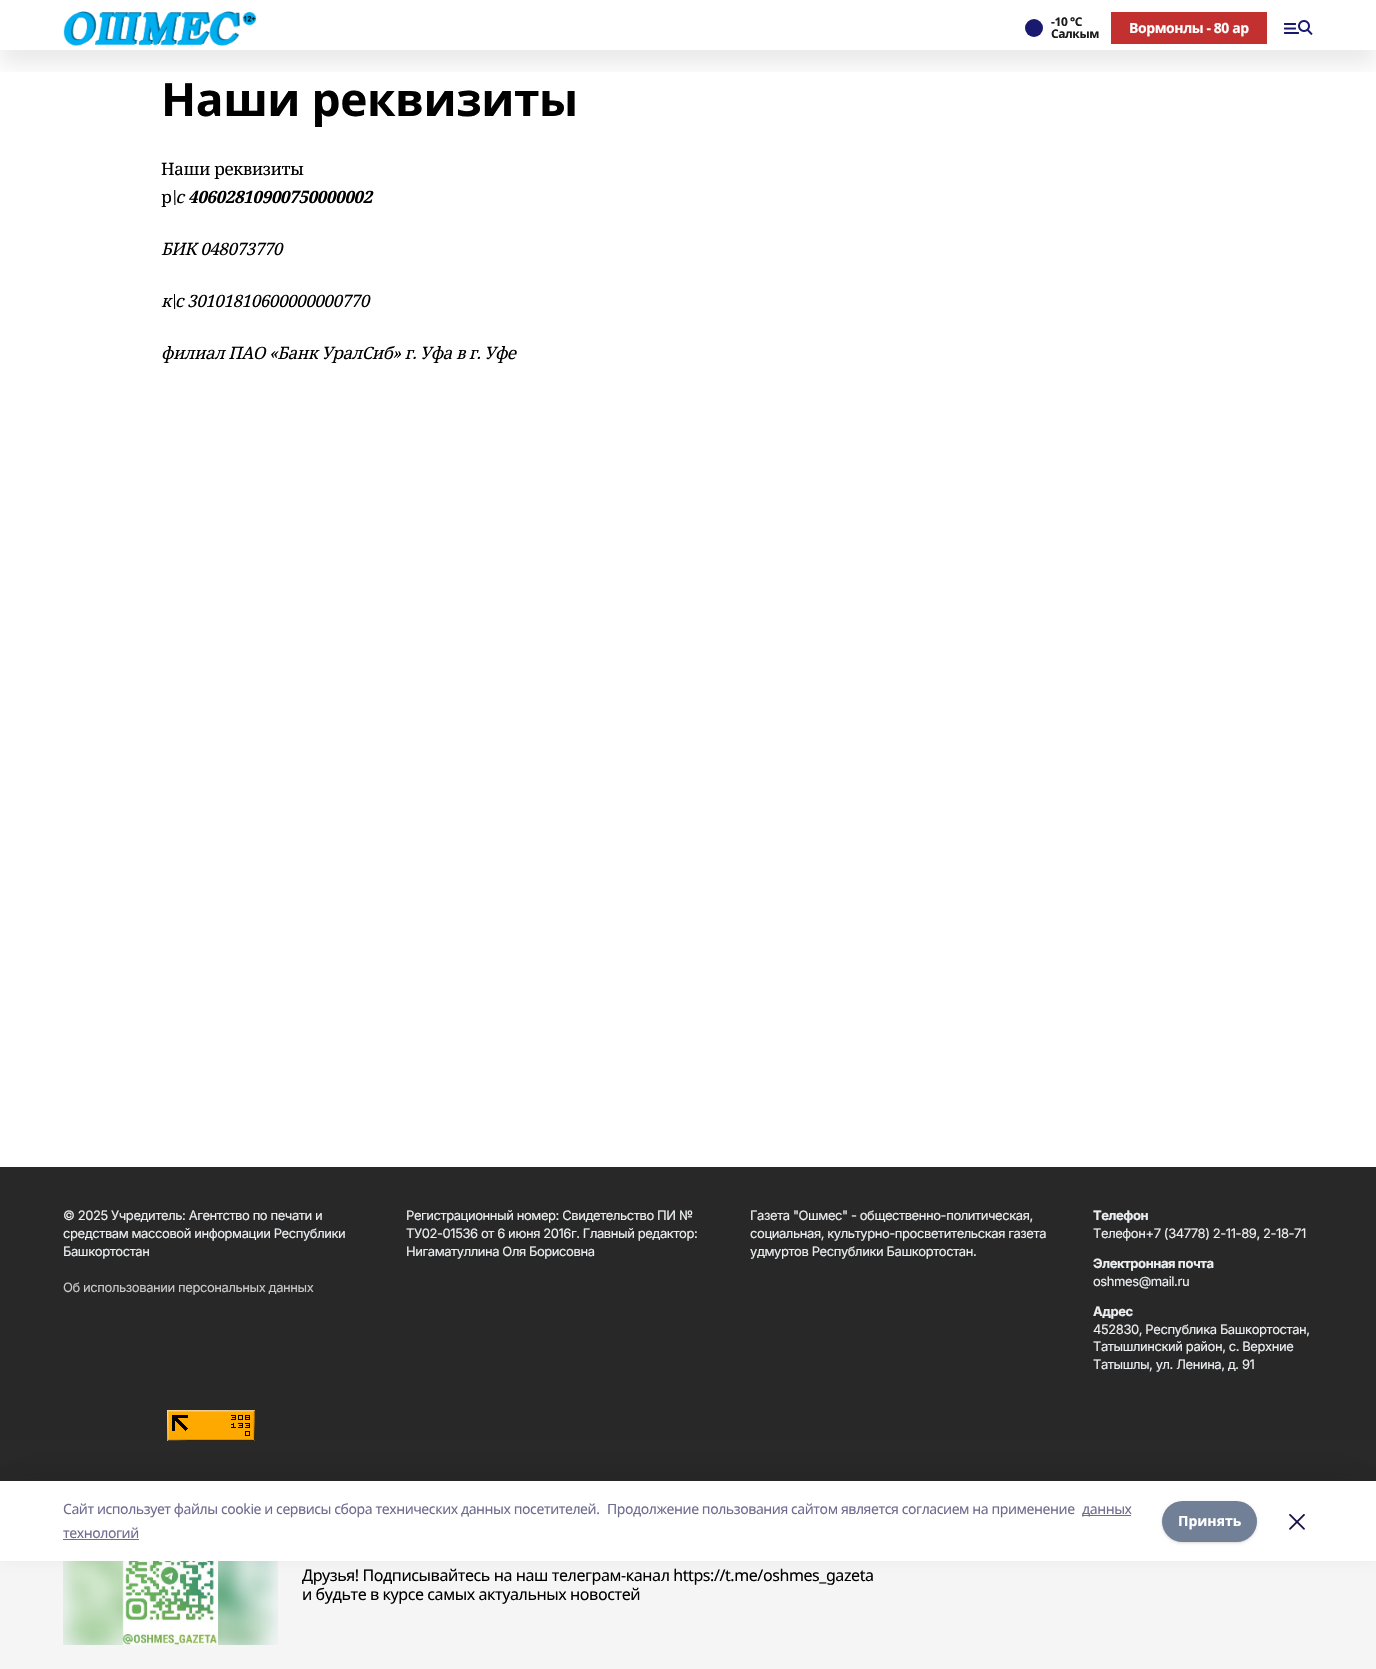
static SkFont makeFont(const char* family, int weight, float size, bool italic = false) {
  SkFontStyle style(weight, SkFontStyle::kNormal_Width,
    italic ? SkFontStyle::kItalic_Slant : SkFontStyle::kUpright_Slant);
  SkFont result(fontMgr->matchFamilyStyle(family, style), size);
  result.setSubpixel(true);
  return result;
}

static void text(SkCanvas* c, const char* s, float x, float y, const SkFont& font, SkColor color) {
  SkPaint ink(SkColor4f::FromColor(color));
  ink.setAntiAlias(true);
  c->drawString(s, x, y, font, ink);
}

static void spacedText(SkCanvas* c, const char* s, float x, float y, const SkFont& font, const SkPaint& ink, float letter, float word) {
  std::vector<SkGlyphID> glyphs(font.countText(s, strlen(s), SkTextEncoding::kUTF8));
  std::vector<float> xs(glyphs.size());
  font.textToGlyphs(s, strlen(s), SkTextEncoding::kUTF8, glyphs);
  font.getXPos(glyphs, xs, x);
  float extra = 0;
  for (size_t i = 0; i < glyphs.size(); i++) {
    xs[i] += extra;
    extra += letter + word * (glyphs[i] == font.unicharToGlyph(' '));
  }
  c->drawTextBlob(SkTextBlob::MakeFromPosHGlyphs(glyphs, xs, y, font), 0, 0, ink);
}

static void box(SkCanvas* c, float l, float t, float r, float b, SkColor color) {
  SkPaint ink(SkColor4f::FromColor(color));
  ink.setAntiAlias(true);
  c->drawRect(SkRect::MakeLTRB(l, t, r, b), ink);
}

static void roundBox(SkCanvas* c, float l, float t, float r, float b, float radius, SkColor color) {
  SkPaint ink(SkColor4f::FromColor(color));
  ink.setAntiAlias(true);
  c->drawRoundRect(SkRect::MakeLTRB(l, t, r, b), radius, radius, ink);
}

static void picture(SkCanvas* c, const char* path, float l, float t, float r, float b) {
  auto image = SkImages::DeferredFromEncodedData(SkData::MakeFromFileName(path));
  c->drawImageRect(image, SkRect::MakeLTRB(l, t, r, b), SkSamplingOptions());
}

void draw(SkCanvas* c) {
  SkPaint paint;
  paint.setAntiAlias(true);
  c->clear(0xffffffff);
  c->save();
  c->clipRect(SkRect::MakeLTRB(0, 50, 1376, 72));
  paint.setColor(0x14000000);
  paint.setMaskFilter(SkMaskFilter::MakeBlur(kNormal_SkBlurStyle, 10));
  c->drawRect(SkRect::MakeLTRB(0, 15, 1376, 65), paint);
  paint.setMaskFilter(nullptr);
  c->restore();
  picture(c, "img_01.png", 63, 11, 257, 46);
  paint.setColor(0xff191970);
  c->drawCircle(1034, 28, 9, paint);
  SkFont face1 = makeFont("Noto Sans", 700, 12);
  paint.setColor(0xff1a1a1a);
  spacedText(c, "-10 °С", 1051, 26, face1, paint, -0.42f, 0);
  spacedText(c, "Салкым", 1051, 38, face1, paint, -0.42f, 0);
  box(c, 1111, 12, 1267, 44, 0xffc23030);
  SkFont face2 = makeFont("Noto Sans", 700, 14);
  paint.setColor(0xffffffff);
  spacedText(c, "Вормонлы - 80 ар", 1129, 33, face2, paint, -0.42f, 0);
  picture(c, "img_02.png", 1284, 20, 1313, 35);
  SkFont face3 = makeFont("Noto Sans", 700, 46);
  paint.setColor(0xff000000);
  spacedText(c, "Наши реквизиты", 161, 116, face3, paint, -0.42f, 0);
  SkFont face4 = makeFont("Noto Serif", 400, 17);
  spacedText(c, "Наши реквизиты", 161, 175, face4, paint, -0.42f, 0);
  spacedText(c, "р", 161, 203, face4, paint, -0.42f, 0);
  SkFont face5 = makeFont("Noto Serif", 400, 17, true);
  spacedText(c, "\\с", 171, 203, face5, paint, -0.42f, 0);
  SkFont face6 = makeFont("Noto Serif", 700, 17, true);
  spacedText(c, "40602810900750000002", 188, 203, face6, paint, -0.42f, 0);
  spacedText(c, "БИК 048073770", 161, 255, face5, paint, -0.42f, 0);
  spacedText(c, "к\\с 30101810600000000770", 161, 307, face5, paint, -0.42f, 0);
  spacedText(c, "филиал ПАО «Банк УралСиб» г. Уфа в г. Уфе", 161, 359, face5, paint, -0.42f, 0);
  box(c, 0, 1167, 1376, 1481, 0xff282828);
  SkFont face7 = makeFont("Inter", 400, 13);
  paint.setColor(0xffeceff1);
  spacedText(c, "© 2025 Учредитель: Агентство по печати и", 63, 1220, face7, paint, -0.42f, 0);
  spacedText(c, "средствам массовой информации Республики", 63, 1238, face7, paint, -0.42f, 0);
  spacedText(c, "Башкортостан", 63, 1256, face7, paint, -0.42f, 0);
  paint.setColor(0xffc9c9c9);
  spacedText(c, "Об использовании персональных данных", 63, 1292, face7, paint, -0.42f, 0);
  paint.setColor(0xffeceff1);
  spacedText(c, "Регистрационный номер: Свидетельство ПИ №", 406, 1220, face7, paint, -0.42f, 0);
  spacedText(c, "ТУ02-01536 от 6 июня 2016г. Главный редактор:", 406, 1238, face7, paint, -0.42f, 0);
  spacedText(c, "Нигаматуллина Оля Борисовна", 406, 1256, face7, paint, -0.42f, 0);
  spacedText(c, "Газета \"Ошмес\" - общественно-политическая,", 750, 1220, face7, paint, -0.42f, 0);
  spacedText(c, "социальная, культурно-просветительская газета", 750, 1238, face7, paint, -0.42f, 0);
  spacedText(c, "удмуртов Республики Башкортостан.", 750, 1256, face7, paint, -0.42f, 0);
  SkFont face8 = makeFont("Inter", 700, 13);
  spacedText(c, "Телефон", 1093, 1220, face8, paint, -0.42f, 0);
  spacedText(c, "Телефон+7 (34778) 2-11-89, 2-18-71", 1093, 1238, face7, paint, -0.42f, 0);
  spacedText(c, "Электронная почта", 1093, 1268, face8, paint, -0.42f, 0);
  spacedText(c, "oshmes@mail.ru", 1093, 1286, face7, paint, -0.42f, 0);
  spacedText(c, "Адрес", 1093, 1316, face8, paint, -0.42f, 0);
  spacedText(c, "452830, Республика Башкортостан,", 1093, 1334, face7, paint, -0.42f, 0);
  spacedText(c, "Татышлинский район, с. Верхние", 1093, 1351, face7, paint, -0.42f, 0);
  spacedText(c, "Татышлы, ул. Ленина, д. 91", 1093, 1369, face7, paint, -0.42f, 0);
  picture(c, "img_03.png", 167, 1410, 255, 1441);
  paint.setColor(0x1f000000);
  paint.setMaskFilter(SkMaskFilter::MakeBlur(kNormal_SkBlurStyle, 30));
  c->drawRect(SkRect::MakeLTRB(0, 1490, 1376, 1659), paint);
  paint.setMaskFilter(nullptr);
  box(c, 0, 1561, 1376, 1669, 0xfff5f5f5);
  box(c, 63, 1561, 278, 1645, 0xffedf2f7);
  picture(c, "img_05.png", 63, 1561, 278, 1645);
  picture(c, "img_06.png", 122, 1561, 219, 1645);
  paint.setColor(0x1414142b);
  paint.setMaskFilter(SkMaskFilter::MakeBlur(kNormal_SkBlurStyle, 11.5f));
  c->drawRect(SkRect::MakeLTRB(0, 1475, 1376, 1555), paint);
  paint.setMaskFilter(nullptr);
  box(c, 0, 1481, 1376, 1561, 0xffffffff);
  SkFont face9 = makeFont("Noto Sans", 400, 14);
  paint.setColor(0xff6f6c90);
  spacedText(c, "Cайт использует файлы cookie и сервисы сбора технических данных посетителей.", 63, 1514, face9, paint, -0.42f, 0);
  spacedText(c, "Продолжение пользования сайтом является согласием на применение", 607, 1514, face9, paint, -0.42f, 0);
  box(c, 1082, 1515, 1131, 1516, 0xff6f6c90);
  spacedText(c, "данных", 1082, 1514, face9, paint, -0.42f, 0);
  spacedText(c, "технологий", 63, 1538, face9, paint, -0.42f, 0);
  box(c, 63, 1539, 139, 1540, 0xff6f6c90);
  paint.setColor(0x0f000000);
  paint.setMaskFilter(SkMaskFilter::MakeBlur(kNormal_SkBlurStyle, 1));
  c->drawRoundRect(SkRect::MakeLTRB(1162, 1502, 1257, 1543), 20.5f, 20.5f, paint);
  paint.setMaskFilter(nullptr);
  paint.setColor(0x1a000000);
  paint.setMaskFilter(SkMaskFilter::MakeBlur(kNormal_SkBlurStyle, 1.5f));
  c->drawRoundRect(SkRect::MakeLTRB(1162, 1502, 1257, 1543), 20.5f, 20.5f, paint);
  paint.setMaskFilter(nullptr);
  roundBox(c, 1162, 1501, 1257, 1542, 20.5f, 0xff718096);
  text(c, "Принять", 1178, 1526, face2, 0xffffffff);
  picture(c, "img_04.png", 1289, 1514, 1305, 1530);
  SkFont face10 = makeFont("Noto Sans", 400, 16);
  paint.setColor(0xff000000);
  spacedText(c, "Друзья! Подписывайтесь на наш телеграм-канал https://t.me/oshmes_gazeta", 302, 1581, face10, paint, -0.42f, 0);
  spacedText(c, "и будьте в курсе самых актуальных новостей", 302, 1600, face10, paint, -0.42f, 0);
}
